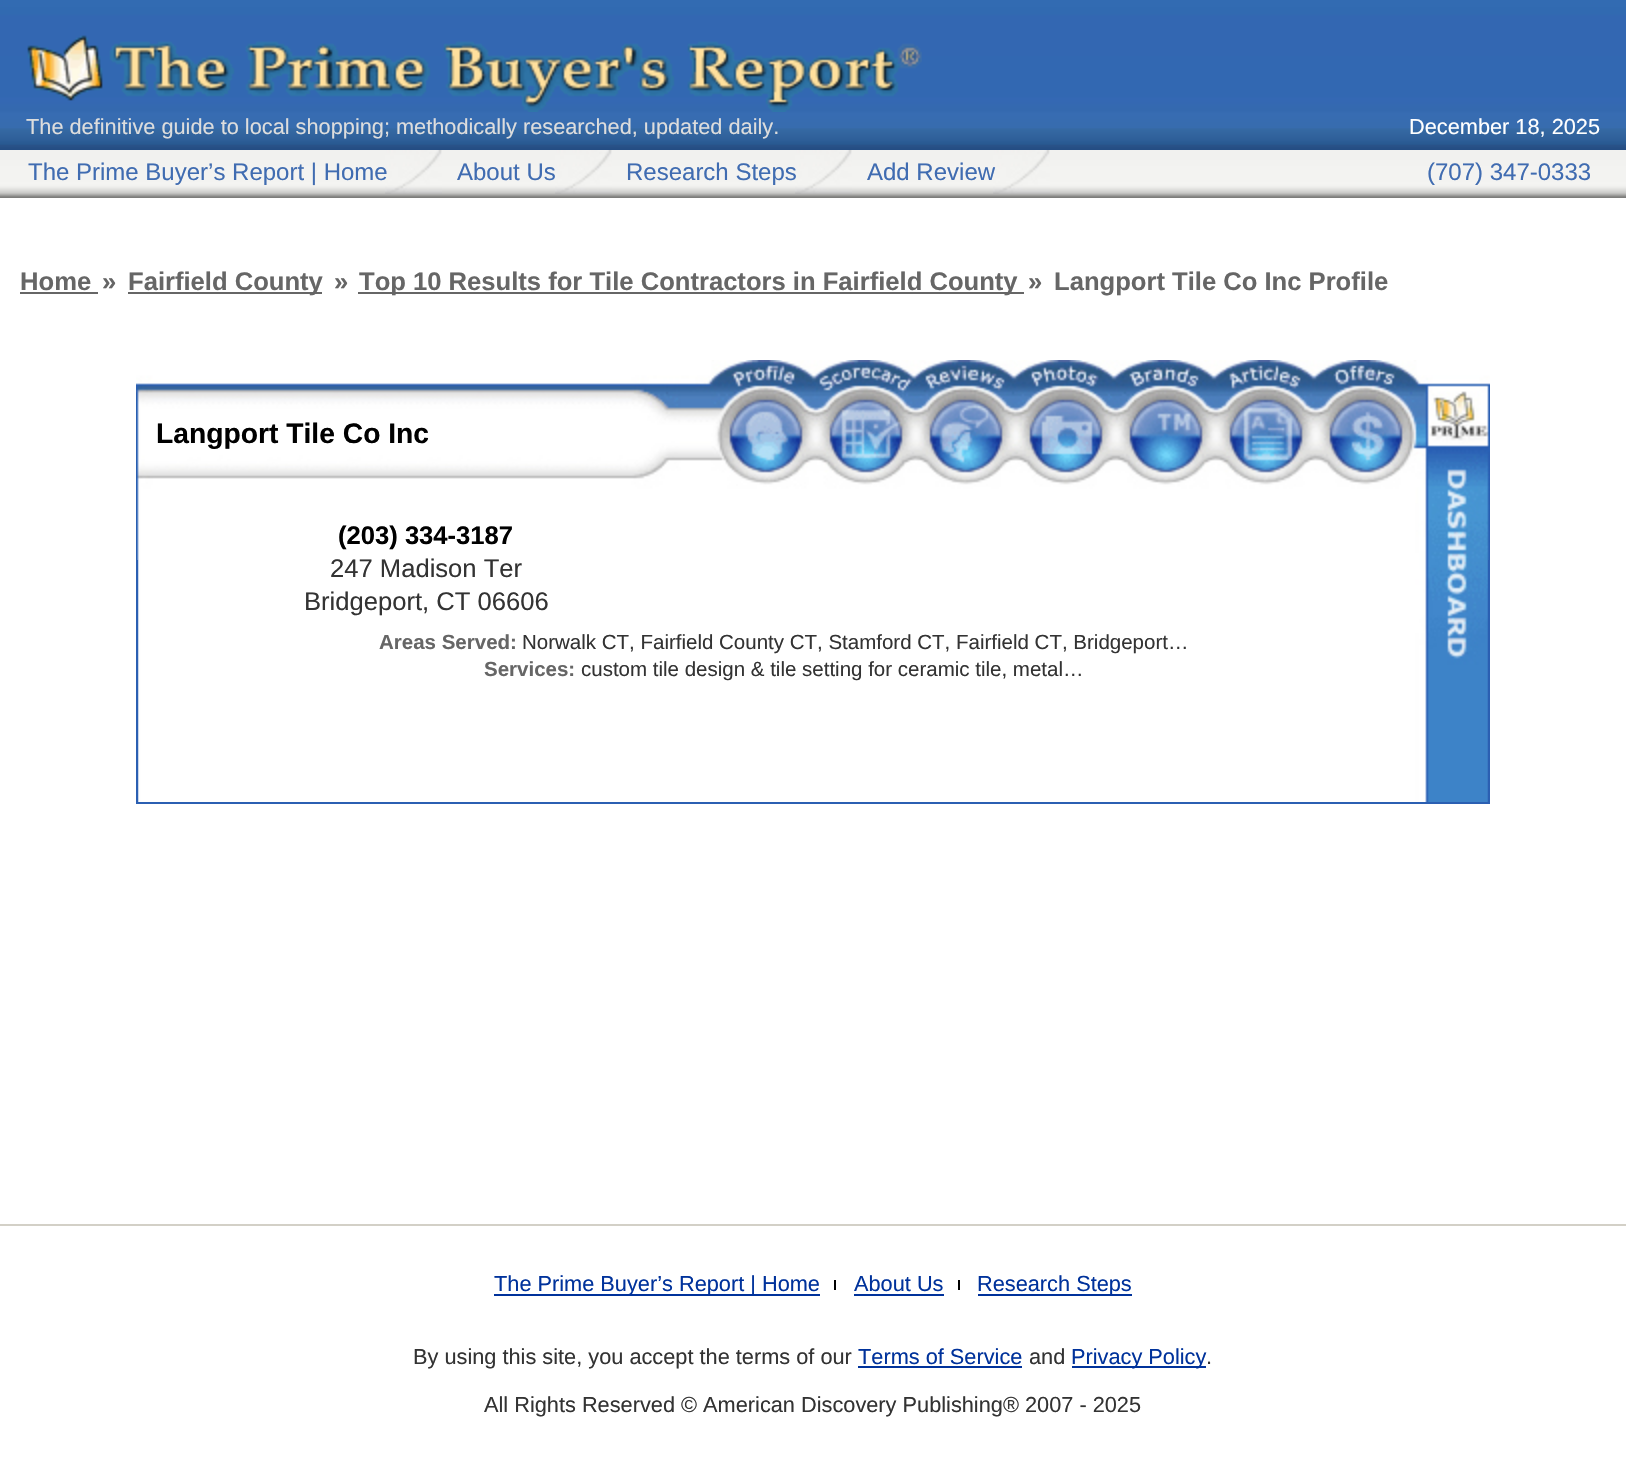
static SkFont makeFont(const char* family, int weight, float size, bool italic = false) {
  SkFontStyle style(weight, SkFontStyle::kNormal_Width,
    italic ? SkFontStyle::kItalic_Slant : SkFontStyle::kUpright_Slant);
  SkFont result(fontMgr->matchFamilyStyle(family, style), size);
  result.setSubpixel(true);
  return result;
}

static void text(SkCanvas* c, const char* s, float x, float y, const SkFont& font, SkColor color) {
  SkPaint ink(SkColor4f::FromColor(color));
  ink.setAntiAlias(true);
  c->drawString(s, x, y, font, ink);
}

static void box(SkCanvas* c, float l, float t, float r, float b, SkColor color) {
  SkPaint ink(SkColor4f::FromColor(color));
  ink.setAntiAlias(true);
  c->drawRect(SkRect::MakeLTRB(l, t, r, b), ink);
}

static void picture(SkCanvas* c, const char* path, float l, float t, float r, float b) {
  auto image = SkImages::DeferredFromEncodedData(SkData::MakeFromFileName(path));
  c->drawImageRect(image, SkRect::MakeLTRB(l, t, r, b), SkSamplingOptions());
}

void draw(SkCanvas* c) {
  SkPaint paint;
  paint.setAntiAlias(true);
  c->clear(0xffffffff);
  {
    const SkColor colors[] = {0xff326bb2, 0xff316ab1, 0xff3367b2, 0xff3268b2, 0xff3468b4, 0xff3469af, 0xff3469af, 0xff376cb2, 0xff376cae, 0xff3569a3, 0xff30619b, 0xff285991, 0xff295288, 0xff234c82};
    const float stops[] = {0, 0.09f, 0.11f, 0.64f, 0.66f, 0.73f, 0.74f, 0.76f, 0.85f, 0.86f, 0.92f, 0.96f, 0.97f, 1};
    const SkPoint ends[] = {{813, 0}, {813, 150}};
    paint.setShader(SkGradientShader::MakeLinear(ends, colors, stops, 14, SkTileMode::kClamp));
    paint.setAlpha(255);
  }
  c->drawRect(SkRect::MakeLTRB(0, 0, 1626, 150), paint);
  picture(c, "img_01.png", 27, 35, 922, 112);
  SkFont face1 = makeFont("Liberation Sans", 400, 21.75f);
  text(c, "The definitive guide to local shopping; methodically researched, updated daily.", 26, 134, face1, 0xffdddddd);
  text(c, "December 18, 2025", 1409, 134, face1, 0xffffffff);
  picture(c, "img_02.png", 0, 150, 1626, 198);
  picture(c, "img_03.png", 385, 150, 442, 194);
  SkFont face2 = makeFont("Liberation Sans", 400, 24);
  text(c, "The Prime Buyer’s Report | Home", 28, 180, face2, 0xff406cb1);
  text(c, "About Us", 457, 180, face2, 0xff406cb1);
  picture(c, "img_03.png", 555, 150, 612, 194);
  picture(c, "img_03.png", 795, 150, 852, 194);
  text(c, "Research Steps", 626, 180, face2, 0xff406cb1);
  picture(c, "img_03.png", 993, 150, 1050, 194);
  text(c, "Add Review", 867, 180, face2, 0xff406cb1);
  text(c, "(707) 347-0333", 1427, 180, face2, 0xff406cb1);
  SkFont face3 = makeFont("Liberation Sans", 700, 25.6f);
  text(c, "Home", 20, 290, face3, 0xff666666);
  box(c, 20, 292, 98, 294, 0xff666666);
  text(c, "»", 102, 290, face3, 0xff666666);
  box(c, 128, 292, 322, 294, 0xff666666);
  text(c, "Fairfield County", 128, 290, face3, 0xff666666);
  text(c, "»", 334, 290, face3, 0xff666666);
  box(c, 358, 292, 1024, 294, 0xff666666);
  text(c, "Top 10 Results for Tile Contractors in Fairfield County", 359, 290, face3, 0xff666666);
  text(c, "»", 1028, 290, face3, 0xff666666);
  text(c, "Langport Tile Co Inc Profile", 1054, 290, face3, 0xff666666);
  picture(c, "img_04.png", 136, 360, 1490, 802);
  box(c, 136, 802, 1490, 804, 0xff2b5fb2);
  SkFont face4 = makeFont("Liberation Sans", 700, 28.25f);
  text(c, "Langport Tile Co Inc", 156, 443, face4, 0xff000000);
  box(c, 136, 560, 138, 802, 0xff2b5fb2);
  text(c, "(203) 334-3187", 338, 544, face3, 0xff000000);
  SkFont face5 = makeFont("Liberation Sans", 400, 25.6f);
  text(c, "247 Madison Ter", 330, 577, face5, 0xff333333);
  text(c, "Bridgeport, CT 06606", 304, 610, face5, 0xff333333);
  box(c, 1488, 560, 1490, 802, 0xff2b5fb2);
  SkFont face6 = makeFont("Liberation Sans", 700, 20.5f);
  text(c, "Areas Served:", 379, 649, face6, 0xff666666);
  SkFont face7 = makeFont("Liberation Sans", 400, 20.5f);
  text(c, "Norwalk CT, Fairfield County CT, Stamford CT, Fairfield CT, Bridgeport…", 522, 649, face7, 0xff333333);
  text(c, "Services:", 484, 676, face6, 0xff666666);
  text(c, "custom tile design & tile setting for ceramic tile, metal…", 581, 676, face7, 0xff333333);
  box(c, 0, 1224, 1626, 1226, 0xffd3d0c7);
  box(c, 494, 1294, 820, 1296, 0xff00329b);
  text(c, "The Prime Buyer’s Report | Home", 494, 1291, face1, 0xff00329b);
  box(c, 834, 1280, 836, 1290, 0xff000000);
  text(c, "About Us", 854, 1291, face1, 0xff00329b);
  box(c, 854, 1294, 944, 1296, 0xff00329b);
  box(c, 958, 1280, 960, 1290, 0xff000000);
  box(c, 978, 1294, 1132, 1296, 0xff00329b);
  text(c, "Research Steps", 977, 1291, face1, 0xff00329b);
  text(c, "By using this site, you accept the terms of our", 413, 1364, face1, 0xff333333);
  text(c, "Terms of Service", 858, 1364, face1, 0xff00329b);
  box(c, 858, 1366, 1022, 1368, 0xff00329b);
  text(c, "and", 1029, 1364, face1, 0xff333333);
  box(c, 1072, 1366, 1206, 1368, 0xff00329b);
  text(c, "Privacy Policy", 1071, 1364, face1, 0xff00329b);
  text(c, ".", 1206, 1364, face1, 0xff333333);
  text(c, "All Rights Reserved © American Discovery Publishing® 2007 - 2025", 484, 1412, face1, 0xff333333);
}
